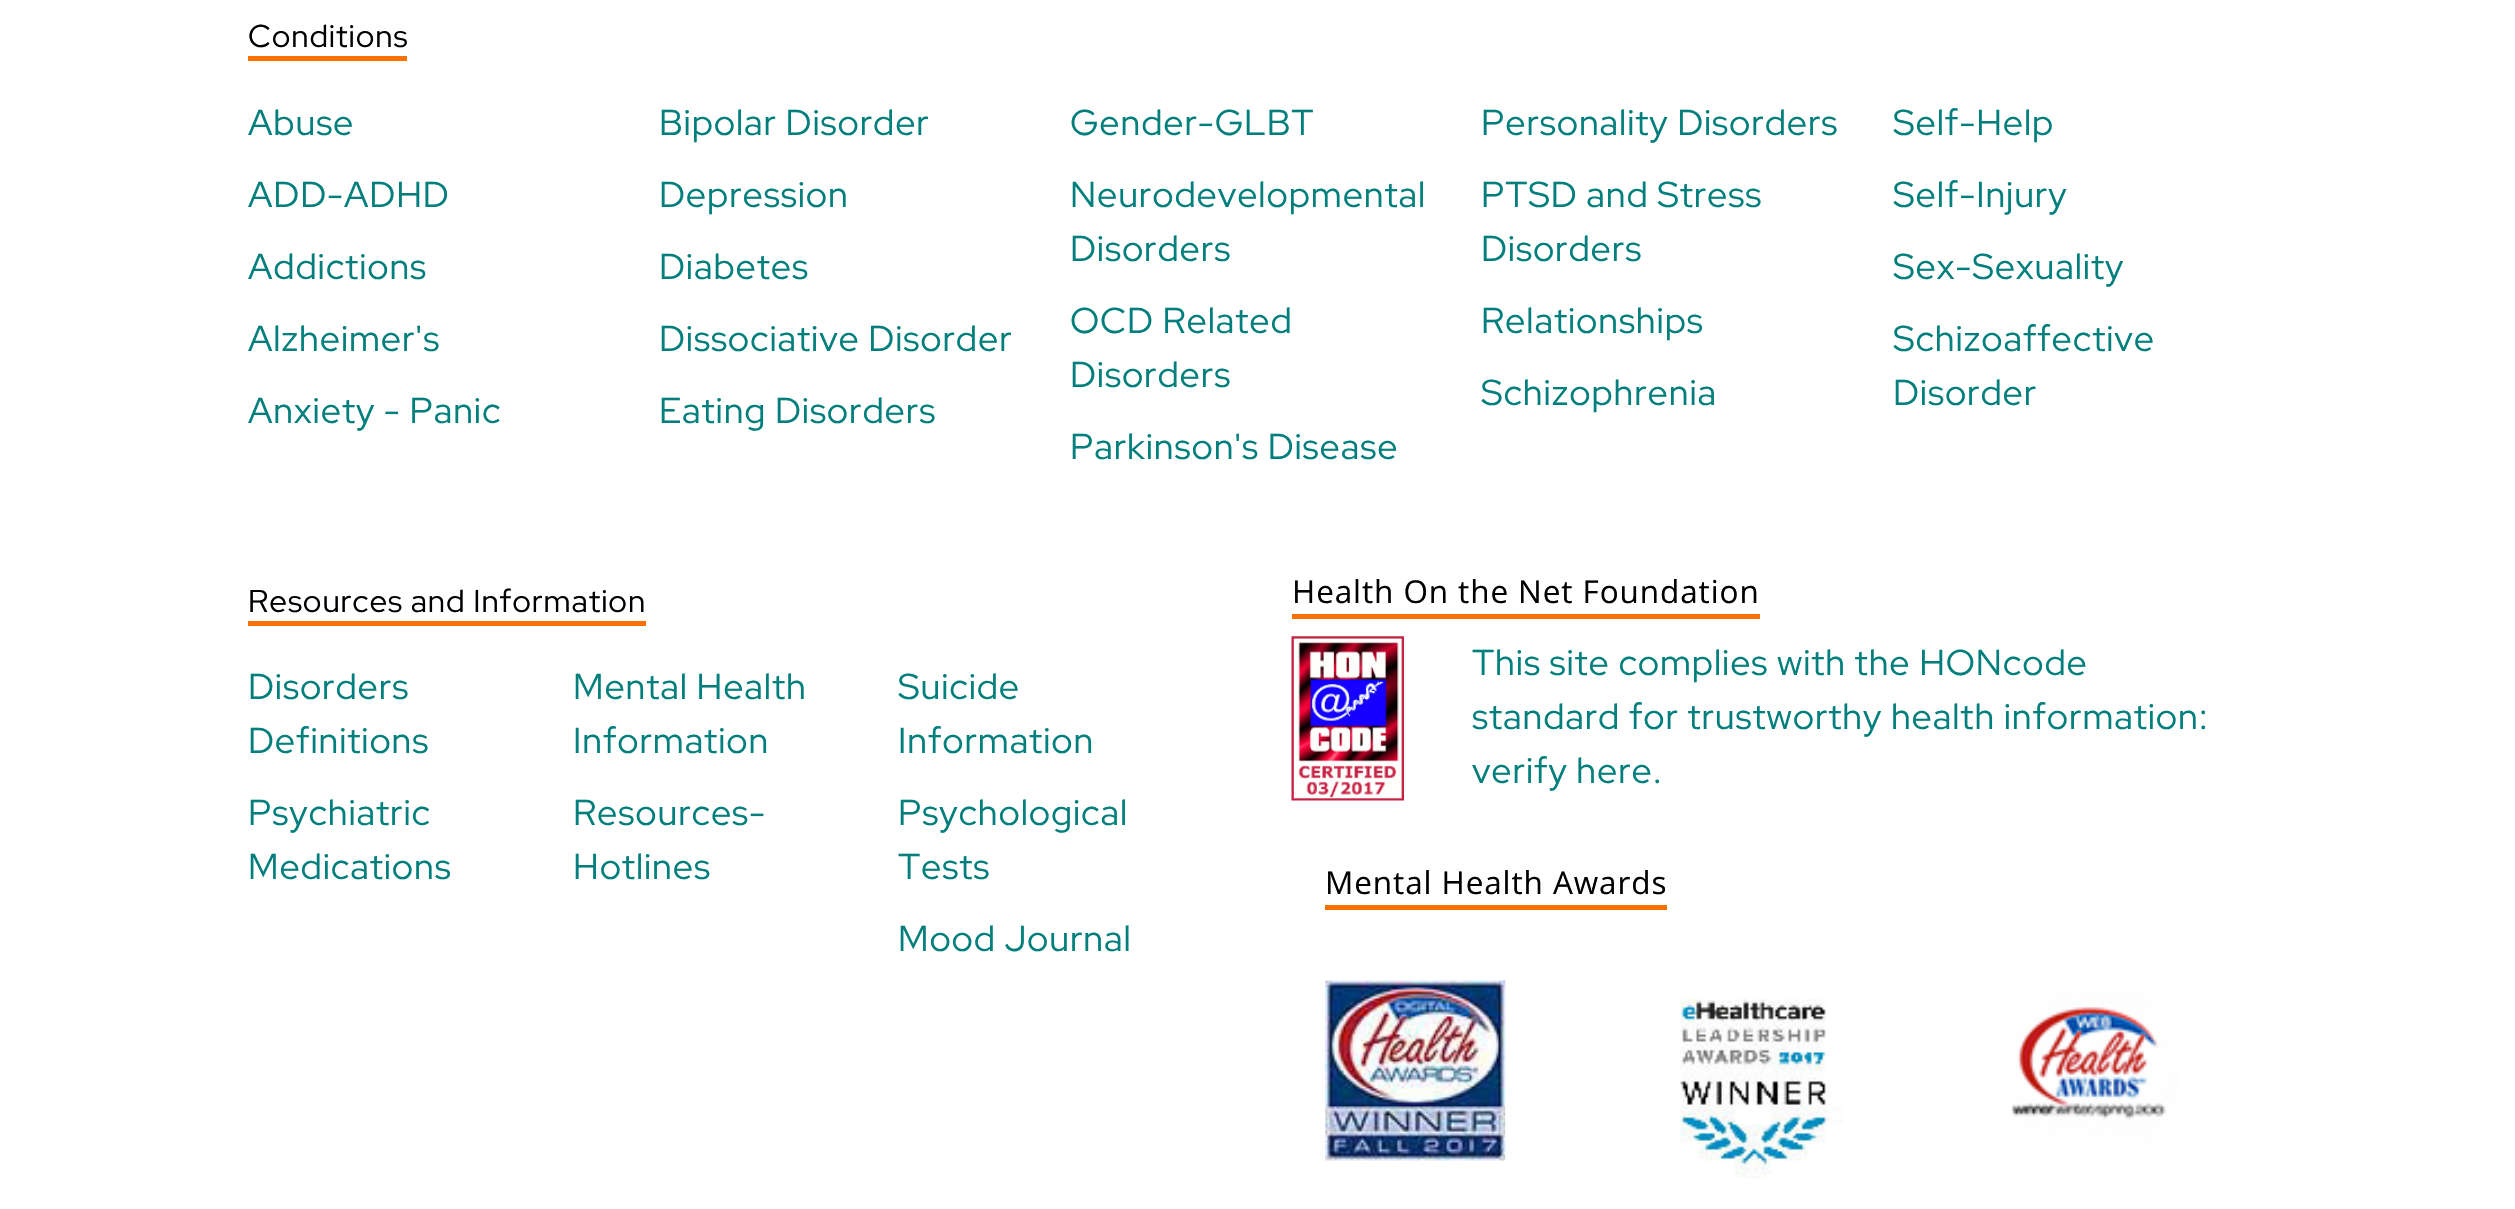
static SkFont makeFont(const char* family, int weight, float size, bool italic = false) {
  SkFontStyle style(weight, SkFontStyle::kNormal_Width,
    italic ? SkFontStyle::kItalic_Slant : SkFontStyle::kUpright_Slant);
  SkFont result(fontMgr->matchFamilyStyle(family, style), size);
  result.setSubpixel(true);
  return result;
}

static void spacedText(SkCanvas* c, const char* s, float x, float y, const SkFont& font, const SkPaint& ink, float letter, float word) {
  std::vector<SkGlyphID> glyphs(font.countText(s, strlen(s), SkTextEncoding::kUTF8));
  std::vector<float> xs(glyphs.size());
  font.textToGlyphs(s, strlen(s), SkTextEncoding::kUTF8, glyphs);
  font.getXPos(glyphs, xs, x);
  float extra = 0;
  for (size_t i = 0; i < glyphs.size(); i++) {
    xs[i] += extra;
    extra += letter + word * (glyphs[i] == font.unicharToGlyph(' '));
  }
  c->drawTextBlob(SkTextBlob::MakeFromPosHGlyphs(glyphs, xs, y, font), 0, 0, ink);
}

static void box(SkCanvas* c, float l, float t, float r, float b, SkColor color) {
  SkPaint ink(SkColor4f::FromColor(color));
  ink.setAntiAlias(true);
  c->drawRect(SkRect::MakeLTRB(l, t, r, b), ink);
}

static void picture(SkCanvas* c, const char* path, float l, float t, float r, float b) {
  auto image = SkImages::DeferredFromEncodedData(SkData::MakeFromFileName(path));
  c->drawImageRect(image, SkRect::MakeLTRB(l, t, r, b), SkSamplingOptions());
}

void draw(SkCanvas* c) {
  SkPaint paint;
  paint.setAntiAlias(true);
  c->clear(0xffffffff);
  box(c, 248, 56, 407, 61, 0xfffb7100);
  SkFont face1 = makeFont("Red Hat Display", 400, 31.5f);
  paint.setColor(0xff000000);
  spacedText(c, "Conditions", 248, 47, face1, paint, 0.9f, 0);
  SkFont face2 = makeFont("Red Hat Display", 400, 36);
  paint.setColor(0xff027f7c);
  spacedText(c, "Abuse", 248, 135, face2, paint, 0.9f, 0);
  spacedText(c, "Bipolar Disorder", 659, 135, face2, paint, 0.9f, 0);
  spacedText(c, "Gender-GLBT", 1070, 135, face2, paint, 0.9f, 0);
  spacedText(c, "Personality Disorders", 1481, 135, face2, paint, 0.9f, 0);
  spacedText(c, "Self-Help", 1893, 135, face2, paint, 0.9f, 0);
  spacedText(c, "ADD-ADHD", 248, 207, face2, paint, 0.9f, 0);
  spacedText(c, "Depression", 659, 207, face2, paint, 0.9f, 0);
  spacedText(c, "Neurodevelopmental", 1070, 207, face2, paint, 0.9f, 0);
  spacedText(c, "Disorders", 1070, 261, face2, paint, 0.9f, 0);
  spacedText(c, "PTSD and Stress", 1481, 207, face2, paint, 0.9f, 0);
  spacedText(c, "Disorders", 1481, 261, face2, paint, 0.9f, 0);
  spacedText(c, "Self-Injury", 1893, 207, face2, paint, 0.9f, 0);
  spacedText(c, "Addictions", 248, 279, face2, paint, 0.9f, 0);
  spacedText(c, "Diabetes", 659, 279, face2, paint, 0.9f, 0);
  spacedText(c, "Sex-Sexuality", 1893, 279, face2, paint, 0.9f, 0);
  spacedText(c, "Alzheimer's", 248, 351, face2, paint, 0.9f, 0);
  spacedText(c, "Dissociative Disorder", 659, 351, face2, paint, 0.9f, 0);
  spacedText(c, "OCD Related", 1070, 333, face2, paint, 0.9f, 0);
  spacedText(c, "Disorders", 1070, 387, face2, paint, 0.9f, 0);
  spacedText(c, "Relationships", 1481, 333, face2, paint, 0.9f, 0);
  spacedText(c, "Schizoaffective", 1893, 351, face2, paint, 0.9f, 0);
  spacedText(c, "Disorder", 1893, 405, face2, paint, 0.9f, 0);
  spacedText(c, "Anxiety - Panic", 248, 423, face2, paint, 0.9f, 0);
  spacedText(c, "Eating Disorders", 659, 423, face2, paint, 0.9f, 0);
  spacedText(c, "Schizophrenia", 1481, 405, face2, paint, 0.9f, 0);
  spacedText(c, "Parkinson's Disease", 1070, 459, face2, paint, 0.9f, 0);
  box(c, 248, 621, 646, 626, 0xfffb7100);
  paint.setColor(0xff000000);
  spacedText(c, "Resources and Information", 248, 612, face1, paint, 0.9f, 0);
  paint.setColor(0xff027f7c);
  spacedText(c, "Disorders", 248, 699, face2, paint, 0.9f, 0);
  spacedText(c, "Definitions", 248, 753, face2, paint, 0.9f, 0);
  spacedText(c, "Mental Health", 573, 699, face2, paint, 0.9f, 0);
  spacedText(c, "Information", 573, 753, face2, paint, 0.9f, 0);
  spacedText(c, "Suicide", 898, 699, face2, paint, 0.9f, 0);
  spacedText(c, "Information", 898, 753, face2, paint, 0.9f, 0);
  spacedText(c, "Psychiatric", 248, 825, face2, paint, 0.9f, 0);
  spacedText(c, "Medications", 248, 879, face2, paint, 0.9f, 0);
  spacedText(c, "Resources-", 573, 825, face2, paint, 0.9f, 0);
  spacedText(c, "Hotlines", 573, 879, face2, paint, 0.9f, 0);
  spacedText(c, "Psychological", 898, 825, face2, paint, 0.9f, 0);
  spacedText(c, "Tests", 898, 879, face2, paint, 0.9f, 0);
  spacedText(c, "Mood Journal", 898, 951, face2, paint, 0.9f, 0);
  box(c, 1292, 614, 1760, 619, 0xfffb7100);
  SkFont face3 = makeFont("Open Sans", 400, 31.5f);
  paint.setColor(0xff000000);
  spacedText(c, "Health On the Net Foundation", 1292, 603, face3, paint, 0.9f, 0);
  picture(c, "img_01.png", 1291, 636, 1404, 801);
  paint.setColor(0xff027f7c);
  spacedText(c, "This site complies with the HONcode", 1472, 675, face2, paint, 0.9f, 0);
  spacedText(c, "standard for trustworthy health information:", 1472, 729, face2, paint, 0.9f, 0);
  spacedText(c, "verify here.", 1472, 783, face2, paint, 0.9f, 0);
  box(c, 1325, 905, 1667, 910, 0xfffb7100);
  paint.setColor(0xff000000);
  spacedText(c, "Mental Health Awards", 1325, 894, face3, paint, 0.9f, 0);
  picture(c, "img_02.png", 1325, 980, 1506, 1161);
  picture(c, "img_03.png", 1680, 998, 1843, 1179);
  picture(c, "img_04.png", 2012, 986, 2180, 1160);
}
